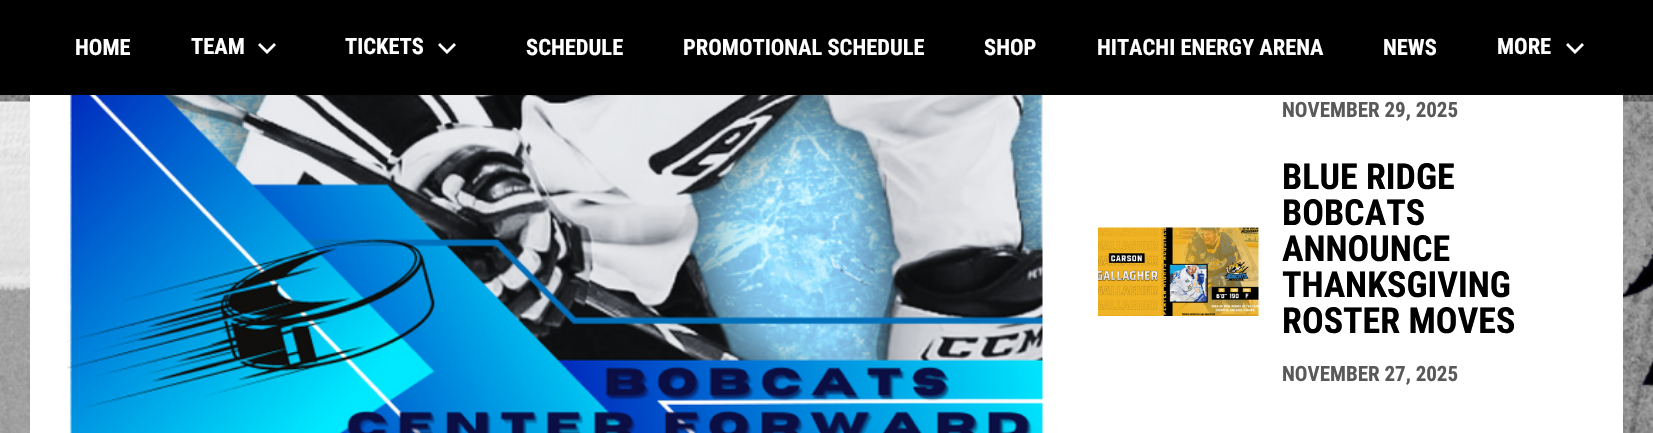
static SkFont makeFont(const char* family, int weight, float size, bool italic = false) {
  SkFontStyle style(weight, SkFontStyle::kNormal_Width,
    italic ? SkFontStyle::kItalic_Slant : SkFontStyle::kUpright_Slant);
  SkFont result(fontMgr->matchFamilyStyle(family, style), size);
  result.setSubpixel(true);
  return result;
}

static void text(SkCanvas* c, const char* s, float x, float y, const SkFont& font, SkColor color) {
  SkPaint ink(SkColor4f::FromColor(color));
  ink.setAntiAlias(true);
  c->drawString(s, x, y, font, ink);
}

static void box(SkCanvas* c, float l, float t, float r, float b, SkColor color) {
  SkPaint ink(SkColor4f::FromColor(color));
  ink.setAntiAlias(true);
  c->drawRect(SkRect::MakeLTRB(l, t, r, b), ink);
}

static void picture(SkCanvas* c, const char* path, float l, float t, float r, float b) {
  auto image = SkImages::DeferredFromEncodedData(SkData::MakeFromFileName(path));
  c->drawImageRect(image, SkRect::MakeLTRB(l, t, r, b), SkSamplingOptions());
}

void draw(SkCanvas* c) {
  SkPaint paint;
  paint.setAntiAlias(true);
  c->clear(0xffffffff);
  picture(c, "img_01.png", 0, 101, 1653, 433);
  picture(c, "img_02.png", 0, 95, 1653, 102);
  box(c, 0, 0, 1653, 95, 0xff000000);
  SkFont face1 = makeFont("Roboto Condensed", 700, 22.5f);
  text(c, "HOME", 75, 55, face1, 0xffffffff);
  text(c, "TEAM", 191, 54, face1, 0xffffffff);
  paint.setColor(0xffffffff);
  c->drawPath(SkPathBuilder().moveTo(260, 43).lineTo(267, 50).lineTo(274, 43).lineTo(276, 45).lineTo(267, 54).lineTo(258, 45).close().detach(), paint);
  text(c, "TICKETS", 345, 54, face1, 0xffffffff);
  c->drawPath(SkPathBuilder().moveTo(440, 43).lineTo(447, 50).lineTo(454, 43).lineTo(456, 45).lineTo(447, 54).lineTo(438, 45).close().detach(), paint);
  text(c, "SCHEDULE", 526, 55, face1, 0xffffffff);
  text(c, "PROMOTIONAL SCHEDULE", 683, 55, face1, 0xffffffff);
  text(c, "SHOP", 984, 55, face1, 0xffffffff);
  text(c, "HITACHI ENERGY ARENA", 1097, 55, face1, 0xffffffff);
  text(c, "NEWS", 1383, 55, face1, 0xffffffff);
  text(c, "MORE", 1497, 54, face1, 0xffffffff);
  c->drawPath(SkPathBuilder().moveTo(1568, 43).lineTo(1575, 50).lineTo(1582, 43).lineTo(1584, 45).lineTo(1575, 54).lineTo(1566, 45).close().detach(), paint);
  box(c, 30, 95, 1623, 433, 0xffffffff);
  picture(c, "img_03.png", 67, 95, 1043, 433);
  SkFont face2 = makeFont("Roboto Condensed", 700, 21);
  text(c, "NOVEMBER 29, 2025", 1282, 117, face2, 0xff595959);
  picture(c, "img_04.png", 1098, 227, 1259, 316);
  SkFont face3 = makeFont("Roboto Condensed", 700, 36);
  text(c, "BLUE RIDGE", 1282, 189, face3, 0xff000000);
  text(c, "BOBCATS", 1282, 225, face3, 0xff000000);
  text(c, "ANNOUNCE", 1282, 261, face3, 0xff000000);
  text(c, "THANKSGIVING", 1282, 297, face3, 0xff000000);
  text(c, "ROSTER MOVES", 1282, 333, face3, 0xff000000);
  text(c, "NOVEMBER 27, 2025", 1282, 381, face2, 0xff595959);
}
